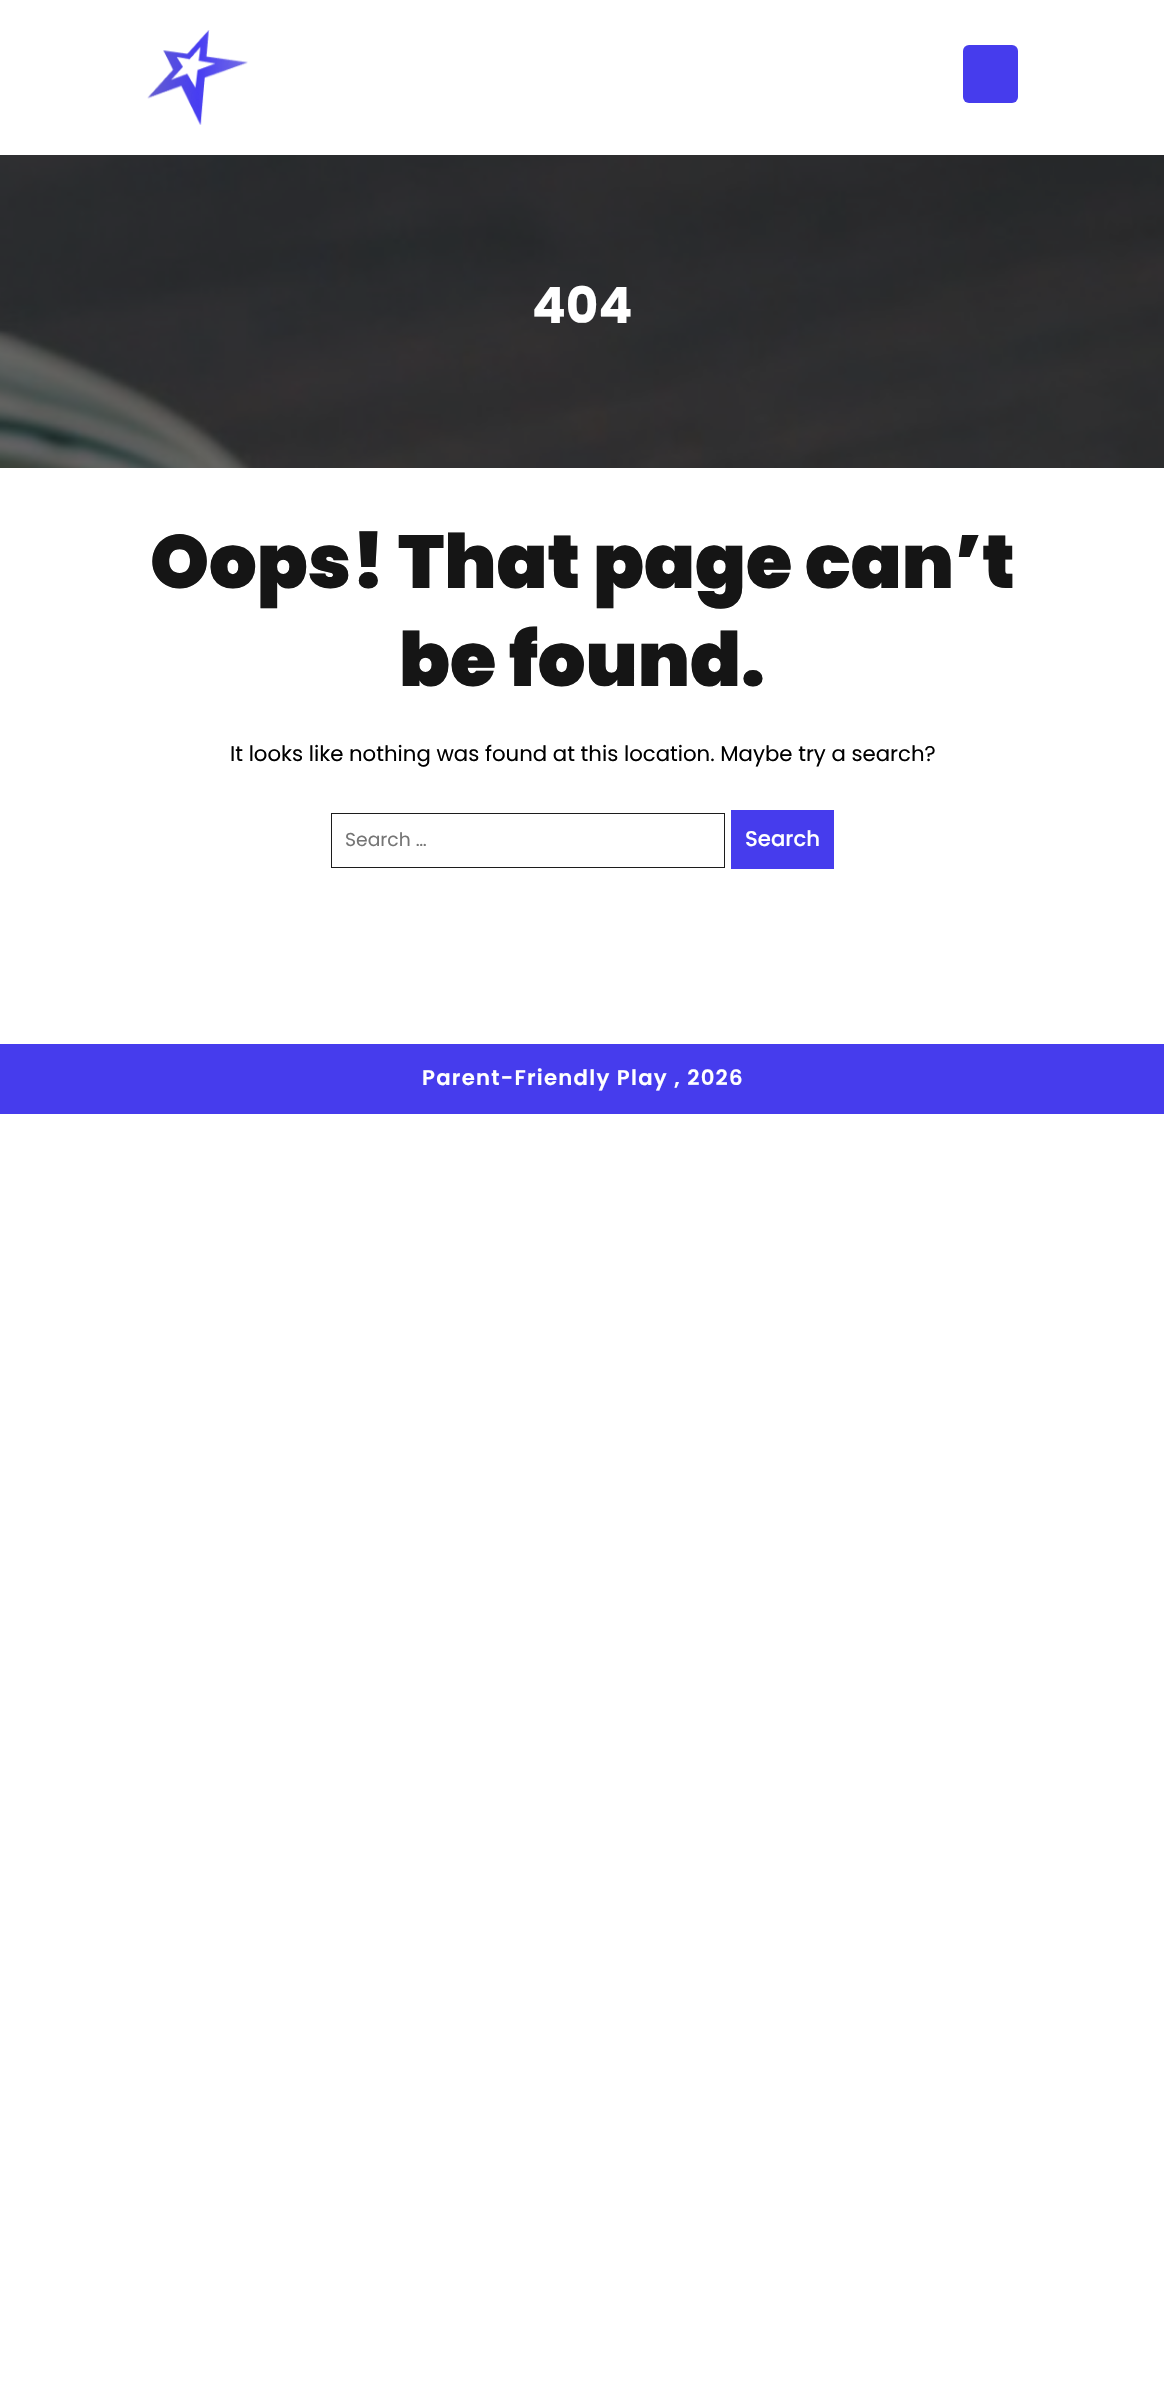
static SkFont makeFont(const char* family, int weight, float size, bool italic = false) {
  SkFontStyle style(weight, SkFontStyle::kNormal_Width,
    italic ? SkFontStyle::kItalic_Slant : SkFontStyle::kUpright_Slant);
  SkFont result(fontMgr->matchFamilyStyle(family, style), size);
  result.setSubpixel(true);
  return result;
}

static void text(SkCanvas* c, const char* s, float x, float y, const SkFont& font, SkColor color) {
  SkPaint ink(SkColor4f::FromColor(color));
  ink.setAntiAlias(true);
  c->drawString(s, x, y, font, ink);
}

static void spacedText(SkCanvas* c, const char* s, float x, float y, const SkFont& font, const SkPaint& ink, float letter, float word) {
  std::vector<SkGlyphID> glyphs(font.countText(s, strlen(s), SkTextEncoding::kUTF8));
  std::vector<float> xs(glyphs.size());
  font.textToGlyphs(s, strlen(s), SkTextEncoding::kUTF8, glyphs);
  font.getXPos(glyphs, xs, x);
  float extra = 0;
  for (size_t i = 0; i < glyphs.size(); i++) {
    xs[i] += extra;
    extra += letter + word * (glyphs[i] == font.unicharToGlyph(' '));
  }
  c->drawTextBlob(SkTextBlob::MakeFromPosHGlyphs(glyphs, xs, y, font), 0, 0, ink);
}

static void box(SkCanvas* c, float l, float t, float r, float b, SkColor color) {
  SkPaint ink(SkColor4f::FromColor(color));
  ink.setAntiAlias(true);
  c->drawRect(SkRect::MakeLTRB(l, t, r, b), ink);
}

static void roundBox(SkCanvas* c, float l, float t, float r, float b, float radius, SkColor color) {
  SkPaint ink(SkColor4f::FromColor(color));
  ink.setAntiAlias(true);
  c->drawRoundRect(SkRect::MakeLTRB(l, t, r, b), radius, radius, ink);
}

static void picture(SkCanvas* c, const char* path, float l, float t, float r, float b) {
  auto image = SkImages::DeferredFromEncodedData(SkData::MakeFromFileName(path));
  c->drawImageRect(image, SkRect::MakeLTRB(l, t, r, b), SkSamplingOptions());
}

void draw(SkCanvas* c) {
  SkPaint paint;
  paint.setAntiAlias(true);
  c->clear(0xffffffff);
  picture(c, "img_01.png", 147, 30, 248, 125);
  roundBox(c, 963, 45, 1018, 103, 6, 0xff463ced);
  box(c, 0, 155, 1164, 468, 0xff000000);
  picture(c, "img_02.png", 0, 155, 1164, 468);
  SkFont face1 = makeFont("Poppins", 700, 50);
  text(c, "404", 532, 323, face1, 0xffffffff);
  SkFont face2 = makeFont("Poppins", 900, 75);
  text(c, "Oops! That page can’t", 150, 588, face2, 0xff151515);
  text(c, "be found.", 399, 686, face2, 0xff151515);
  SkFont face3 = makeFont("Poppins", 400, 21.25f);
  text(c, "It looks like nothing was found at this location. Maybe try a search?", 230, 761, face3, 0xff000000);
  paint.setStyle(SkPaint::kStroke_Style);
  paint.setStrokeWidth(1);
  paint.setColor(0xff1c1c1c);
  c->drawRect(SkRect::MakeLTRB(331.5f, 813.5f, 724.5f, 867.5f), paint);
  SkFont face4 = makeFont("Poppins", 400, 18.75f);
  text(c, "Search …", 345, 846, face4, 0xff757575);
  box(c, 731, 810, 834, 869, 0xff463ced);
  SkFont face5 = makeFont("Poppins", 500, 21.25f);
  text(c, "Search", 745, 846, face5, 0xffffffff);
  box(c, 0, 1044, 1164, 1114, 0xff463ced);
  SkFont face6 = makeFont("Poppins", 600, 21.25f);
  paint.setStyle(SkPaint::kFill_Style);
  paint.setColor(0xffffffff);
  spacedText(c, "Parent-Friendly Play , 2026", 422, 1085, face6, paint, 1.25f, 0);
}
